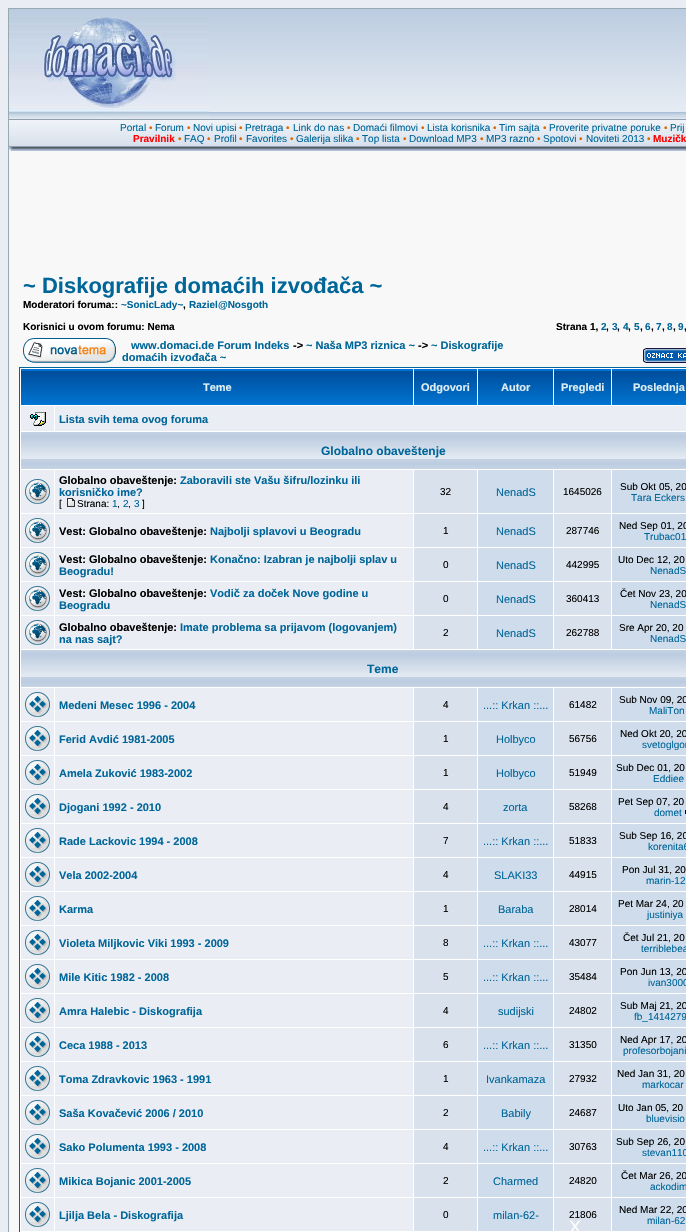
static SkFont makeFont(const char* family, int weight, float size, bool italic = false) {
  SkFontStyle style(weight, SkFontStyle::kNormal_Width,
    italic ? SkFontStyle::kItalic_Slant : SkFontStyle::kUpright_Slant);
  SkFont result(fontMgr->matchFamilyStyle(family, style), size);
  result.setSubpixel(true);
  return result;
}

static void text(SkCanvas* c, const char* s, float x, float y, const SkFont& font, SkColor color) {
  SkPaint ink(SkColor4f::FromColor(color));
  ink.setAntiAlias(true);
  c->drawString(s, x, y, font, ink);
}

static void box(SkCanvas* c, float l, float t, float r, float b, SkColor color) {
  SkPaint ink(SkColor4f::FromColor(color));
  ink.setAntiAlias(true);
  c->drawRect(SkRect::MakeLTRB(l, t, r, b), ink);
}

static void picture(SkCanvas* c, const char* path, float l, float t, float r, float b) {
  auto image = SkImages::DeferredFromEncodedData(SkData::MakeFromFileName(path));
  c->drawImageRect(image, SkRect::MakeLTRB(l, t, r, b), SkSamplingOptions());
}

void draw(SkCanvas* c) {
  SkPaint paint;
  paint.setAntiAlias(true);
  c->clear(0xffeaedf4);
  box(c, 8, 8, 686, 9, 0xff98aab1);
  box(c, 8, 8, 9, 1232, 0xff98aab1);
  picture(c, "img_01.png", 9, 9, 686, 119);
  picture(c, "img_02.png", 9, 17, 209, 118);
  picture(c, "img_03.png", 677, 105, 686, 117);
  picture(c, "img_04.png", 9, 120, 686, 146);
  box(c, 9, 119, 686, 120, 0xff91a0ae);
  box(c, 9, 146, 686, 147, 0xff91a0ae);
  SkFont face1 = makeFont("Liberation Sans", 400, 10);
  text(c, "Portal", 120, 131, face1, 0xff006699);
  text(c, "•", 149, 131, face1, 0xffdd6900);
  text(c, "Forum", 155, 131, face1, 0xff006699);
  text(c, "•", 187, 131, face1, 0xffdd6900);
  text(c, "Novi upisi", 193, 131, face1, 0xff006699);
  text(c, "•", 239, 131, face1, 0xffdd6900);
  text(c, "Pretraga", 245, 131, face1, 0xff006699);
  text(c, "•", 286, 131, face1, 0xffdd6900);
  text(c, "Link do nas", 293, 131, face1, 0xff006699);
  text(c, "•", 347, 131, face1, 0xffdd6900);
  text(c, "Domaći filmovi", 353, 131, face1, 0xff006699);
  text(c, "•", 421, 131, face1, 0xffdd6900);
  text(c, "Lista korisnika", 427, 131, face1, 0xff006699);
  text(c, "•", 493, 131, face1, 0xffdd6900);
  text(c, "Tim sajta", 499, 131, face1, 0xff006699);
  text(c, "•", 543, 131, face1, 0xffdd6900);
  text(c, "Proverite privatne poruke", 549, 131, face1, 0xff006699);
  text(c, "•", 664, 131, face1, 0xffdd6900);
  text(c, "Prij", 670, 131, face1, 0xff006699);
  SkFont face2 = makeFont("Liberation Sans", 700, 10);
  text(c, "Pravilnik", 133, 142, face2, 0xffff0000);
  text(c, "•", 178, 142, face1, 0xffdd6900);
  text(c, "FAQ", 184, 142, face1, 0xff006699);
  text(c, "•", 207, 142, face1, 0xffdd6900);
  text(c, "Profil", 214, 142, face1, 0xff006699);
  text(c, "•", 239, 142, face1, 0xffdd6900);
  text(c, "Favorites", 246, 142, face1, 0xff006699);
  text(c, "•", 290, 142, face1, 0xffdd6900);
  text(c, "Galerija slika", 296, 142, face1, 0xff006699);
  text(c, "•", 356, 142, face1, 0xffdd6900);
  text(c, "Top lista", 362, 142, face1, 0xff006699);
  text(c, "•", 403, 142, face1, 0xffdd6900);
  text(c, "Download MP3", 409, 142, face1, 0xff006699);
  text(c, "•", 480, 142, face1, 0xffdd6900);
  text(c, "MP3 razno", 486, 142, face1, 0xff006699);
  text(c, "•", 537, 142, face1, 0xffdd6900);
  text(c, "Spotovi", 543, 142, face1, 0xff006699);
  text(c, "•", 579, 142, face1, 0xffdd6900);
  text(c, "Noviteti 2013", 586, 142, face1, 0xff006699);
  text(c, "•", 647, 142, face1, 0xffdd6900);
  text(c, "Muzičk", 653, 142, face2, 0xffff0000);
  picture(c, "img_05.png", 9, 147, 17, 151);
  picture(c, "img_06.png", 17, 147, 686, 151);
  box(c, 9, 151, 686, 1232, 0xfff8f8f8);
  SkFont face3 = makeFont("Liberation Sans", 700, 22);
  text(c, "~ Diskografije domaćih izvođača ~", 23, 293, face3, 0xff006699);
  text(c, "Moderatori foruma::", 23, 308, face2, 0xff000000);
  text(c, "~SonicLady~", 121, 308, face2, 0xff006699);
  text(c, ",", 183, 308, face2, 0xff000000);
  text(c, "Raziel@Nosgoth", 189, 308, face2, 0xff006699);
  text(c, "Korisnici u ovom forumu: Nema", 23, 330, face2, 0xff000000);
  text(c, "Strana 1,", 556, 330, face2, 0xff000000);
  text(c, "2", 601, 330, face2, 0xff006699);
  text(c, ",", 606, 330, face2, 0xff000000);
  text(c, "3", 612, 330, face2, 0xff006699);
  text(c, ",", 617, 330, face2, 0xff000000);
  text(c, "4", 623, 330, face2, 0xff006699);
  text(c, ",", 628, 330, face2, 0xff000000);
  text(c, "5", 634, 330, face2, 0xff006699);
  text(c, ",", 640, 330, face2, 0xff000000);
  text(c, "6", 645, 330, face2, 0xff006699);
  text(c, ",", 651, 330, face2, 0xff000000);
  text(c, "7", 656, 330, face2, 0xff006699);
  text(c, ",", 662, 330, face2, 0xff000000);
  text(c, "8", 667, 330, face2, 0xff006699);
  text(c, ",", 673, 330, face2, 0xff000000);
  text(c, "9", 678, 330, face2, 0xff006699);
  text(c, ",", 684, 330, face2, 0xff000000);
  picture(c, "img_07.png", 23, 338, 116, 363);
  SkFont face4 = makeFont("Liberation Sans", 700, 11);
  text(c, "www.domaci.de Forum Indeks", 131, 349, face4, 0xff006699);
  text(c, "->", 293, 349, face4, 0xff000000);
  text(c, "~ Naša MP3 riznica ~", 306, 349, face4, 0xff006699);
  text(c, "->", 418, 349, face4, 0xff000000);
  text(c, "~ Diskografije", 431, 349, face4, 0xff006699);
  text(c, "domaćih izvođača ~", 122, 361, face4, 0xff006699);
  picture(c, "img_08.png", 643, 348, 686, 363);
  paint.setColor(0xffffffff);
  c->drawRect(SkRect::MakeLTRB(19.5f, 367.5f, 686.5f, 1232.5f), paint);
  paint.setStyle(SkPaint::kStroke_Style);
  paint.setStrokeWidth(1);
  paint.setColor(0xff006699);
  c->drawRect(SkRect::MakeLTRB(19.5f, 367.5f, 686.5f, 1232.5f), paint);
  picture(c, "img_09.png", 21, 369, 413, 405);
  text(c, "Teme", 203, 391, face4, 0xffdeeef3);
  picture(c, "img_10.png", 414, 369, 477, 405);
  text(c, "Odgovori", 421, 391, face4, 0xffdeeef3);
  picture(c, "img_11.png", 478, 369, 553, 405);
  text(c, "Autor", 501, 391, face4, 0xffdeeef3);
  picture(c, "img_12.png", 554, 369, 611, 405);
  text(c, "Pregledi", 561, 391, face4, 0xffdeeef3);
  picture(c, "img_13.png", 612, 369, 686, 405);
  text(c, "Poslednja", 633, 391, face4, 0xffdeeef3);
  box(c, 21, 406, 54, 431, 0xffeaedf4);
  picture(c, "img_14.png", 30, 412, 46, 426);
  box(c, 55, 406, 686, 431, 0xffeaedf4);
  text(c, "Lista svih tema ovog foruma", 59, 423, face4, 0xff006699);
  picture(c, "img_15.png", 21, 432, 686, 469);
  SkFont face5 = makeFont("Liberation Sans", 700, 12);
  text(c, "Globalno obaveštenje", 321, 455, face5, 0xff006699);
  box(c, 21, 470, 54, 513, 0xffeaedf4);
  picture(c, "img_16.png", 25, 479, 50, 504);
  box(c, 55, 470, 413, 513, 0xffeaedf4);
  text(c, "Globalno obaveštenje:", 59, 484, face4, 0xff000000);
  text(c, "Zaboravili ste Vašu šifru/lozinku ili", 180, 484, face4, 0xff006699);
  text(c, "korisničko ime?", 59, 496, face4, 0xff006699);
  text(c, "[", 59, 507, face1, 0xff000000);
  picture(c, "img_17.png", 67, 498, 75, 507);
  text(c, "Strana:", 77, 507, face1, 0xff000000);
  text(c, "1", 112, 507, face1, 0xff006699);
  text(c, ",", 117, 507, face1, 0xff000000);
  text(c, "2", 123, 507, face1, 0xff006699);
  text(c, ",", 128, 507, face1, 0xff000000);
  text(c, "3", 134, 507, face1, 0xff006699);
  text(c, "]", 142, 507, face1, 0xff000000);
  box(c, 414, 470, 477, 513, 0xffd9e2ec);
  text(c, "32", 440, 495, face1, 0xff000000);
  box(c, 478, 470, 553, 513, 0xffcedcec);
  SkFont face6 = makeFont("Liberation Sans", 400, 11);
  text(c, "NenadS", 496, 496, face6, 0xff006699);
  box(c, 554, 470, 611, 513, 0xffd9e2ec);
  text(c, "1645026", 563, 495, face1, 0xff000000);
  box(c, 612, 470, 686, 513, 0xffcedcec);
  text(c, "Sub Okt 05, 20", 620, 490, face1, 0xff000000);
  text(c, "Tara Eckers", 631, 501, face1, 0xff006699);
  box(c, 21, 514, 54, 547, 0xffeaedf4);
  picture(c, "img_16.png", 25, 518, 50, 543);
  box(c, 55, 514, 413, 547, 0xffeaedf4);
  text(c, "Vest: Globalno obaveštenje:", 59, 535, face4, 0xff000000);
  text(c, "Najbolji splavovi u Beogradu", 210, 535, face4, 0xff006699);
  box(c, 414, 514, 477, 547, 0xffd9e2ec);
  text(c, "1", 443, 534, face1, 0xff000000);
  box(c, 478, 514, 553, 547, 0xffcedcec);
  text(c, "NenadS", 496, 535, face6, 0xff006699);
  box(c, 554, 514, 611, 547, 0xffd9e2ec);
  text(c, "287746", 566, 534, face1, 0xff000000);
  box(c, 612, 514, 686, 547, 0xffcedcec);
  text(c, "Ned Sep 01, 20", 619, 529, face1, 0xff000000);
  text(c, "Trubac01", 644, 540, face1, 0xff006699);
  box(c, 21, 548, 54, 581, 0xffeaedf4);
  picture(c, "img_16.png", 25, 552, 50, 577);
  box(c, 55, 548, 413, 581, 0xffeaedf4);
  text(c, "Vest: Globalno obaveštenje:", 59, 563, face4, 0xff000000);
  text(c, "Konačno: Izabran je najbolji splav u", 210, 563, face4, 0xff006699);
  text(c, "Beogradu!", 59, 575, face4, 0xff006699);
  box(c, 414, 548, 477, 581, 0xffd9e2ec);
  text(c, "0", 443, 568, face1, 0xff000000);
  box(c, 478, 548, 553, 581, 0xffcedcec);
  text(c, "NenadS", 496, 569, face6, 0xff006699);
  box(c, 554, 548, 611, 581, 0xffd9e2ec);
  text(c, "442995", 566, 568, face1, 0xff000000);
  box(c, 612, 548, 686, 581, 0xffcedcec);
  text(c, "Uto Dec 12, 20", 618, 563, face1, 0xff000000);
  text(c, "NenadS", 650, 574, face1, 0xff006699);
  box(c, 21, 582, 54, 615, 0xffeaedf4);
  picture(c, "img_16.png", 25, 586, 50, 611);
  box(c, 55, 582, 413, 615, 0xffeaedf4);
  text(c, "Vest: Globalno obaveštenje:", 59, 597, face4, 0xff000000);
  text(c, "Vodič za doček Nove godine u", 210, 597, face4, 0xff006699);
  text(c, "Beogradu", 59, 609, face4, 0xff006699);
  box(c, 414, 582, 477, 615, 0xffd9e2ec);
  text(c, "0", 443, 602, face1, 0xff000000);
  box(c, 478, 582, 553, 615, 0xffcedcec);
  text(c, "NenadS", 496, 603, face6, 0xff006699);
  box(c, 554, 582, 611, 615, 0xffd9e2ec);
  text(c, "360413", 566, 602, face1, 0xff000000);
  box(c, 612, 582, 686, 615, 0xffcedcec);
  text(c, "Čet Nov 23, 20", 620, 597, face1, 0xff000000);
  text(c, "NenadS", 650, 608, face1, 0xff006699);
  box(c, 21, 616, 54, 649, 0xffeaedf4);
  picture(c, "img_16.png", 25, 620, 50, 645);
  box(c, 55, 616, 413, 649, 0xffeaedf4);
  text(c, "Globalno obaveštenje:", 59, 631, face4, 0xff000000);
  text(c, "Imate problema sa prijavom (logovanjem)", 180, 631, face4, 0xff006699);
  text(c, "na nas sajt?", 59, 643, face4, 0xff006699);
  box(c, 414, 616, 477, 649, 0xffd9e2ec);
  text(c, "2", 443, 636, face1, 0xff000000);
  box(c, 478, 616, 553, 649, 0xffcedcec);
  text(c, "NenadS", 496, 637, face6, 0xff006699);
  box(c, 554, 616, 611, 649, 0xffd9e2ec);
  text(c, "262788", 566, 636, face1, 0xff000000);
  box(c, 612, 616, 686, 649, 0xffcedcec);
  text(c, "Sre Apr 20, 20", 619, 631, face1, 0xff000000);
  text(c, "NenadS", 650, 642, face1, 0xff006699);
  picture(c, "img_15.png", 21, 650, 686, 687);
  text(c, "Teme", 367, 673, face5, 0xff006699);
  box(c, 21, 688, 54, 721, 0xffeaedf4);
  picture(c, "img_18.png", 25, 692, 50, 717);
  box(c, 55, 688, 413, 721, 0xffeaedf4);
  text(c, "Medeni Mesec 1996 - 2004", 59, 709, face4, 0xff006699);
  box(c, 414, 688, 477, 721, 0xffd9e2ec);
  text(c, "4", 443, 708, face1, 0xff000000);
  box(c, 478, 688, 553, 721, 0xffcedcec);
  text(c, "...:: Krkan ::...", 483, 709, face6, 0xff006699);
  box(c, 554, 688, 611, 721, 0xffd9e2ec);
  text(c, "61482", 569, 708, face1, 0xff000000);
  box(c, 612, 688, 686, 721, 0xffcedcec);
  text(c, "Sub Nov 09, 20", 619, 703, face1, 0xff000000);
  text(c, "MaliTon", 649, 714, face1, 0xff006699);
  box(c, 21, 722, 54, 755, 0xffeaedf4);
  picture(c, "img_18.png", 25, 726, 50, 751);
  box(c, 55, 722, 413, 755, 0xffeaedf4);
  text(c, "Ferid Avdić 1981-2005", 59, 743, face4, 0xff006699);
  box(c, 414, 722, 477, 755, 0xffd9e2ec);
  text(c, "1", 443, 742, face1, 0xff000000);
  box(c, 478, 722, 553, 755, 0xffcedcec);
  text(c, "Holbyco", 496, 743, face6, 0xff006699);
  box(c, 554, 722, 611, 755, 0xffd9e2ec);
  text(c, "56756", 569, 742, face1, 0xff000000);
  box(c, 612, 722, 686, 755, 0xffcedcec);
  text(c, "Ned Okt 20, 20", 620, 737, face1, 0xff000000);
  text(c, "svetoglgor", 642, 748, face1, 0xff006699);
  box(c, 21, 756, 54, 789, 0xffeaedf4);
  picture(c, "img_18.png", 25, 760, 50, 785);
  box(c, 55, 756, 413, 789, 0xffeaedf4);
  text(c, "Amela Zuković 1983-2002", 59, 777, face4, 0xff006699);
  box(c, 414, 756, 477, 789, 0xffd9e2ec);
  text(c, "1", 443, 776, face1, 0xff000000);
  box(c, 478, 756, 553, 789, 0xffcedcec);
  text(c, "Holbyco", 496, 777, face6, 0xff006699);
  box(c, 554, 756, 611, 789, 0xffd9e2ec);
  text(c, "51949", 569, 776, face1, 0xff000000);
  box(c, 612, 756, 686, 789, 0xffcedcec);
  text(c, "Sub Dec 01, 20", 616, 771, face1, 0xff000000);
  text(c, "Eddiee", 653, 782, face1, 0xff006699);
  box(c, 21, 790, 54, 823, 0xffeaedf4);
  picture(c, "img_18.png", 25, 794, 50, 819);
  box(c, 55, 790, 413, 823, 0xffeaedf4);
  text(c, "Djogani 1992 - 2010", 59, 811, face4, 0xff006699);
  box(c, 414, 790, 477, 823, 0xffd9e2ec);
  text(c, "4", 443, 810, face1, 0xff000000);
  box(c, 478, 790, 553, 823, 0xffcedcec);
  text(c, "zorta", 503, 811, face6, 0xff006699);
  box(c, 554, 790, 611, 823, 0xffd9e2ec);
  text(c, "58268", 569, 810, face1, 0xff000000);
  box(c, 612, 790, 686, 823, 0xffcedcec);
  text(c, "Pet Sep 07, 20", 618, 805, face1, 0xff000000);
  text(c, "domet", 654, 816, face1, 0xff006699);
  box(c, 685, 810, 686, 814, 0xff000000);
  box(c, 21, 824, 54, 857, 0xffeaedf4);
  picture(c, "img_18.png", 25, 828, 50, 853);
  box(c, 55, 824, 413, 857, 0xffeaedf4);
  text(c, "Rade Lackovic 1994 - 2008", 59, 845, face4, 0xff006699);
  box(c, 414, 824, 477, 857, 0xffd9e2ec);
  text(c, "7", 443, 844, face1, 0xff000000);
  box(c, 478, 824, 553, 857, 0xffcedcec);
  text(c, "...:: Krkan ::...", 483, 845, face6, 0xff006699);
  box(c, 554, 824, 611, 857, 0xffd9e2ec);
  text(c, "51833", 569, 844, face1, 0xff000000);
  box(c, 612, 824, 686, 857, 0xffcedcec);
  text(c, "Sub Sep 16, 20", 619, 839, face1, 0xff000000);
  text(c, "korenita6", 648, 850, face1, 0xff006699);
  box(c, 21, 858, 54, 891, 0xffeaedf4);
  picture(c, "img_18.png", 25, 862, 50, 887);
  box(c, 55, 858, 413, 891, 0xffeaedf4);
  text(c, "Vela 2002-2004", 59, 879, face4, 0xff006699);
  box(c, 414, 858, 477, 891, 0xffd9e2ec);
  text(c, "4", 443, 878, face1, 0xff000000);
  box(c, 478, 858, 553, 891, 0xffcedcec);
  text(c, "SLAKI33", 494, 879, face6, 0xff006699);
  box(c, 554, 858, 611, 891, 0xffd9e2ec);
  text(c, "44915", 569, 878, face1, 0xff000000);
  box(c, 612, 858, 686, 891, 0xffcedcec);
  text(c, "Pon Jul 31, 20", 622, 873, face1, 0xff000000);
  text(c, "marin-12", 646, 884, face1, 0xff006699);
  box(c, 21, 892, 54, 925, 0xffeaedf4);
  picture(c, "img_18.png", 25, 896, 50, 921);
  box(c, 55, 892, 413, 925, 0xffeaedf4);
  text(c, "Karma", 59, 913, face4, 0xff006699);
  box(c, 414, 892, 477, 925, 0xffd9e2ec);
  text(c, "1", 443, 912, face1, 0xff000000);
  box(c, 478, 892, 553, 925, 0xffcedcec);
  text(c, "Baraba", 498, 913, face6, 0xff006699);
  box(c, 554, 892, 611, 925, 0xffd9e2ec);
  text(c, "28014", 569, 912, face1, 0xff000000);
  box(c, 612, 892, 686, 925, 0xffcedcec);
  text(c, "Pet Mar 24, 20", 618, 907, face1, 0xff000000);
  text(c, "justiniya", 647, 918, face1, 0xff006699);
  box(c, 21, 926, 54, 959, 0xffeaedf4);
  picture(c, "img_18.png", 25, 930, 50, 955);
  box(c, 55, 926, 413, 959, 0xffeaedf4);
  text(c, "Violeta Miljkovic Viki 1993 - 2009", 59, 947, face4, 0xff006699);
  box(c, 414, 926, 477, 959, 0xffd9e2ec);
  text(c, "8", 443, 946, face1, 0xff000000);
  box(c, 478, 926, 553, 959, 0xffcedcec);
  text(c, "...:: Krkan ::...", 483, 947, face6, 0xff006699);
  box(c, 554, 926, 611, 959, 0xffd9e2ec);
  text(c, "43077", 569, 946, face1, 0xff000000);
  box(c, 612, 926, 686, 959, 0xffcedcec);
  text(c, "Čet Jul 21, 20", 623, 941, face1, 0xff000000);
  text(c, "terriblebea", 641, 952, face1, 0xff006699);
  box(c, 21, 960, 54, 993, 0xffeaedf4);
  picture(c, "img_18.png", 25, 964, 50, 989);
  box(c, 55, 960, 413, 993, 0xffeaedf4);
  text(c, "Mile Kitic 1982 - 2008", 59, 981, face4, 0xff006699);
  box(c, 414, 960, 477, 993, 0xffd9e2ec);
  text(c, "5", 443, 980, face1, 0xff000000);
  box(c, 478, 960, 553, 993, 0xffcedcec);
  text(c, "...:: Krkan ::...", 483, 981, face6, 0xff006699);
  box(c, 554, 960, 611, 993, 0xffd9e2ec);
  text(c, "35484", 569, 980, face1, 0xff000000);
  box(c, 612, 960, 686, 993, 0xffcedcec);
  text(c, "Pon Jun 13, 20", 620, 975, face1, 0xff000000);
  text(c, "ivan3000", 648, 986, face1, 0xff006699);
  box(c, 21, 994, 54, 1027, 0xffeaedf4);
  picture(c, "img_18.png", 25, 998, 50, 1023);
  box(c, 55, 994, 413, 1027, 0xffeaedf4);
  text(c, "Amra Halebic - Diskografija", 59, 1015, face4, 0xff006699);
  box(c, 414, 994, 477, 1027, 0xffd9e2ec);
  text(c, "4", 443, 1014, face1, 0xff000000);
  box(c, 478, 994, 553, 1027, 0xffcedcec);
  text(c, "sudijski", 498, 1015, face6, 0xff006699);
  box(c, 554, 994, 611, 1027, 0xffd9e2ec);
  text(c, "24802", 569, 1014, face1, 0xff000000);
  box(c, 612, 994, 686, 1027, 0xffcedcec);
  text(c, "Sub Maj 21, 20", 620, 1009, face1, 0xff000000);
  text(c, "fb_1414279", 634, 1020, face1, 0xff006699);
  box(c, 21, 1028, 54, 1061, 0xffeaedf4);
  picture(c, "img_18.png", 25, 1032, 50, 1057);
  box(c, 55, 1028, 413, 1061, 0xffeaedf4);
  text(c, "Ceca 1988 - 2013", 59, 1049, face4, 0xff006699);
  box(c, 414, 1028, 477, 1061, 0xffd9e2ec);
  text(c, "6", 443, 1048, face1, 0xff000000);
  box(c, 478, 1028, 553, 1061, 0xffcedcec);
  text(c, "...:: Krkan ::...", 483, 1049, face6, 0xff006699);
  box(c, 554, 1028, 611, 1061, 0xffd9e2ec);
  text(c, "31350", 569, 1048, face1, 0xff000000);
  box(c, 612, 1028, 686, 1061, 0xffcedcec);
  text(c, "Ned Apr 17, 20", 620, 1043, face1, 0xff000000);
  text(c, "profesorbojani", 623, 1054, face1, 0xff006699);
  box(c, 21, 1062, 54, 1095, 0xffeaedf4);
  picture(c, "img_18.png", 25, 1066, 50, 1091);
  box(c, 55, 1062, 413, 1095, 0xffeaedf4);
  text(c, "Toma Zdravkovic 1963 - 1991", 59, 1083, face4, 0xff006699);
  box(c, 414, 1062, 477, 1095, 0xffd9e2ec);
  text(c, "1", 443, 1082, face1, 0xff000000);
  box(c, 478, 1062, 553, 1095, 0xffcedcec);
  text(c, "Ivankamaza", 486, 1083, face6, 0xff006699);
  box(c, 554, 1062, 611, 1095, 0xffd9e2ec);
  text(c, "27932", 569, 1082, face1, 0xff000000);
  box(c, 612, 1062, 686, 1095, 0xffcedcec);
  text(c, "Ned Jan 31, 20", 617, 1077, face1, 0xff000000);
  text(c, "markocar", 642, 1088, face1, 0xff006699);
  box(c, 21, 1096, 54, 1129, 0xffeaedf4);
  picture(c, "img_18.png", 25, 1100, 50, 1125);
  box(c, 55, 1096, 413, 1129, 0xffeaedf4);
  text(c, "Saša Kovačević 2006 / 2010", 59, 1117, face4, 0xff006699);
  box(c, 414, 1096, 477, 1129, 0xffd9e2ec);
  text(c, "2", 443, 1116, face1, 0xff000000);
  box(c, 478, 1096, 553, 1129, 0xffcedcec);
  text(c, "Babily", 501, 1117, face6, 0xff006699);
  box(c, 554, 1096, 611, 1129, 0xffd9e2ec);
  text(c, "24687", 569, 1116, face1, 0xff000000);
  box(c, 612, 1096, 686, 1129, 0xffcedcec);
  text(c, "Uto Jan 05, 20", 618, 1111, face1, 0xff000000);
  text(c, "bluevisio", 646, 1122, face1, 0xff006699);
  box(c, 21, 1130, 54, 1163, 0xffeaedf4);
  picture(c, "img_18.png", 25, 1134, 50, 1159);
  box(c, 55, 1130, 413, 1163, 0xffeaedf4);
  text(c, "Sako Polumenta 1993 - 2008", 59, 1151, face4, 0xff006699);
  box(c, 414, 1130, 477, 1163, 0xffd9e2ec);
  text(c, "4", 443, 1150, face1, 0xff000000);
  box(c, 478, 1130, 553, 1163, 0xffcedcec);
  text(c, "...:: Krkan ::...", 483, 1151, face6, 0xff006699);
  box(c, 554, 1130, 611, 1163, 0xffd9e2ec);
  text(c, "30763", 569, 1150, face1, 0xff000000);
  box(c, 612, 1130, 686, 1163, 0xffcedcec);
  text(c, "Sub Sep 26, 20", 616, 1145, face1, 0xff000000);
  text(c, "stevan110", 642, 1156, face1, 0xff006699);
  box(c, 21, 1164, 54, 1197, 0xffeaedf4);
  picture(c, "img_18.png", 25, 1168, 50, 1193);
  box(c, 55, 1164, 413, 1197, 0xffeaedf4);
  text(c, "Mikica Bojanic 2001-2005", 59, 1185, face4, 0xff006699);
  box(c, 414, 1164, 477, 1197, 0xffd9e2ec);
  text(c, "2", 443, 1184, face1, 0xff000000);
  box(c, 478, 1164, 553, 1197, 0xffcedcec);
  text(c, "Charmed", 493, 1185, face6, 0xff006699);
  box(c, 554, 1164, 611, 1197, 0xffd9e2ec);
  text(c, "24820", 569, 1184, face1, 0xff000000);
  box(c, 612, 1164, 686, 1197, 0xffcedcec);
  text(c, "Čet Mar 26, 20", 621, 1179, face1, 0xff000000);
  text(c, "ackodim", 650, 1190, face1, 0xff006699);
  box(c, 21, 1198, 54, 1231, 0xffeaedf4);
  picture(c, "img_18.png", 25, 1202, 50, 1227);
  box(c, 55, 1198, 413, 1231, 0xffeaedf4);
  text(c, "Ljilja Bela - Diskografija", 59, 1219, face4, 0xff006699);
  box(c, 414, 1198, 477, 1231, 0xffd9e2ec);
  text(c, "0", 443, 1218, face1, 0xff000000);
  box(c, 478, 1198, 553, 1231, 0xffcedcec);
  text(c, "milan-62-", 493, 1219, face6, 0xff006699);
  box(c, 554, 1198, 611, 1231, 0xffd9e2ec);
  text(c, "21806", 569, 1218, face1, 0xff000000);
  box(c, 612, 1198, 686, 1231, 0xffcedcec);
  text(c, "Ned Mar 22, 20", 619, 1213, face1, 0xff000000);
  text(c, "milan-62", 647, 1224, face1, 0xff006699);
  SkFont face7 = makeFont("Liberation Sans", 400, 18);
  text(c, "X", 569, 1233, face7, 0xffffffff);
}
